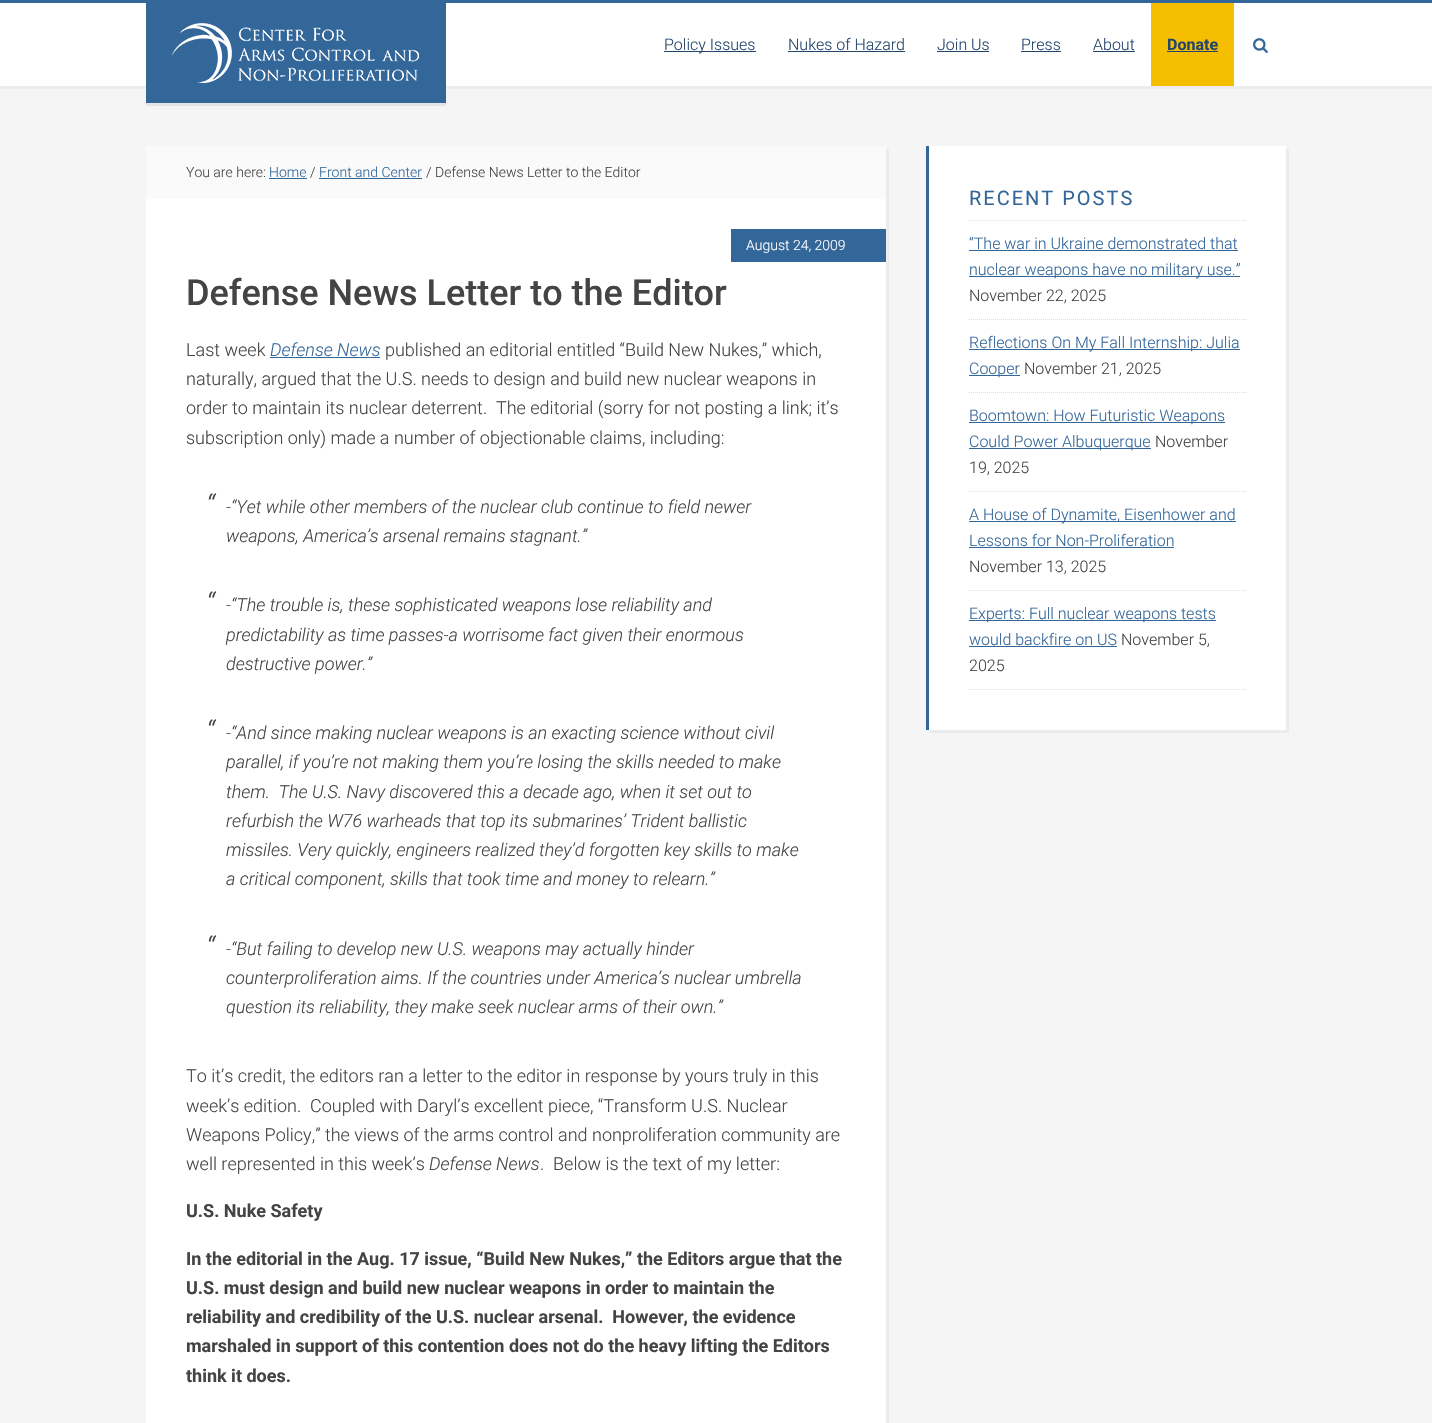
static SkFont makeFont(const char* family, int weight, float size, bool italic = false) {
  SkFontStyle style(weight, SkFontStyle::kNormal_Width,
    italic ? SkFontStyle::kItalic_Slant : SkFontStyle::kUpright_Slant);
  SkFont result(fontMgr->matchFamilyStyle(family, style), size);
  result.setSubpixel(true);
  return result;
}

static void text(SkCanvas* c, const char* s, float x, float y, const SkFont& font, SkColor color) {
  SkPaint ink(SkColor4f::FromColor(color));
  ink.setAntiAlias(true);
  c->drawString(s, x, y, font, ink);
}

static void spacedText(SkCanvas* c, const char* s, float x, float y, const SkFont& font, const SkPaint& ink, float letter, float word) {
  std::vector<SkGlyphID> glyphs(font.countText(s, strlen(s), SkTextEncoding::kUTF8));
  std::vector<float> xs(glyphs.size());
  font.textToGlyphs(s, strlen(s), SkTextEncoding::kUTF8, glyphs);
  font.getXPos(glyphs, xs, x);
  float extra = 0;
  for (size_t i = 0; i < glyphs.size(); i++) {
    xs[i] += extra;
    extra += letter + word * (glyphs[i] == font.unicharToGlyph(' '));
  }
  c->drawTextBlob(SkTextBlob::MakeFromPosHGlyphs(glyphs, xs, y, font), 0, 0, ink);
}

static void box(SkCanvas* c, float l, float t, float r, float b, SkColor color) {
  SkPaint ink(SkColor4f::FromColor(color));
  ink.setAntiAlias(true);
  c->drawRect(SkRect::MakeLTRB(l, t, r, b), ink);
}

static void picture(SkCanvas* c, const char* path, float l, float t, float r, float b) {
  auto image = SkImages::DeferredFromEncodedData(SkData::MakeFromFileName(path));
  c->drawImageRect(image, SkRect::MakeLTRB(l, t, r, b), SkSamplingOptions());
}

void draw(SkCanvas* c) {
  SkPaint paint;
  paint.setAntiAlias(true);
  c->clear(0xfff5f5f5);
  box(c, 0, 86, 1432, 89, 0xffececec);
  box(c, 0, 3, 1432, 86, 0xffffffff);
  box(c, 0, 0, 1432, 3, 0xff336699);
  box(c, 146, 103, 446, 106, 0xffe4e4e4);
  picture(c, "img_01.png", 146, 3, 446, 103);
  box(c, 664, 51, 756, 52, 0xff23456b);
  SkFont face1 = makeFont("Roboto", 300, 16);
  text(c, "Policy Issues", 664, 50, face1, 0xff23456b);
  text(c, "Nukes of Hazard", 788, 50, face1, 0xff23456b);
  box(c, 788, 51, 905, 52, 0xff23456b);
  text(c, "Join Us", 937, 50, face1, 0xff23456b);
  box(c, 937, 51, 989, 52, 0xff23456b);
  text(c, "Press", 1021, 50, face1, 0xff23456b);
  box(c, 1021, 51, 1061, 52, 0xff23456b);
  text(c, "About", 1093, 50, face1, 0xff23456b);
  box(c, 1093, 51, 1135, 52, 0xff23456b);
  box(c, 1151, 3, 1234, 86, 0xfff6be00);
  SkFont face2 = makeFont("Roboto", 700, 16);
  text(c, "Donate", 1167, 50, face2, 0xff23456b);
  box(c, 1167, 51, 1218, 52, 0xff23456b);
  picture(c, "img_02.png", 1253, 38, 1268, 53);
  paint.setColor(0xffececec);
  c->drawPath(SkPathBuilder().moveTo(149, 199).lineTo(149, 202).lineTo(889, 202).lineTo(889, 149).lineTo(886, 149).lineTo(886, 199).close().detach(), paint);
  box(c, 146, 146, 886, 199, 0xfffafafa);
  SkFont face3 = makeFont("Roboto", 300, 14);
  text(c, "You are here:", 186, 177, face3, 0xff444444);
  text(c, "Home", 269, 177, face3, 0xff336699);
  box(c, 269, 178, 307, 179, 0xff336699);
  text(c, "/", 310, 177, face3, 0xff444444);
  text(c, "Front and Center", 319, 177, face3, 0xff336699);
  box(c, 319, 178, 422, 179, 0xff336699);
  text(c, "/ Defense News Letter to the Editor", 426, 177, face3, 0xff444444);
  c->drawPath(SkPathBuilder().moveTo(149, 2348).lineTo(149, 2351).lineTo(889, 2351).lineTo(889, 202).lineTo(886, 202).lineTo(886, 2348).close().detach(), paint);
  box(c, 146, 199, 886, 1423, 0xffffffff);
  box(c, 731, 229, 886, 262, 0xff336699);
  text(c, "August 24, 2009", 746, 250, face3, 0xffffffff);
  SkFont face4 = makeFont("Roboto", 500, 36);
  text(c, "Defense News Letter to the Editor", 186, 305, face4, 0xff444444);
  SkFont face5 = makeFont("Roboto", 300, 18);
  text(c, "Last week", 186, 356, face5, 0xff444444);
  SkFont face6 = makeFont("Roboto", 300, 18, true);
  text(c, "Defense News", 270, 356, face6, 0xff336699);
  box(c, 270, 357, 380, 358, 0xff336699);
  text(c, "published an editorial entitled “Build New Nukes,” which,", 385, 356, face5, 0xff444444);
  text(c, "naturally, argued that the U.S. needs to design and build new nuclear weapons in", 186, 385, face5, 0xff444444);
  text(c, "order to maintain its nuclear deterrent.  The editorial (sorry for not posting a link; it’s", 186, 414, face5, 0xff444444);
  text(c, "subscription only) made a number of objectionable claims, including:", 186, 444, face5, 0xff444444);
  SkFont face7 = makeFont("Roboto", 300, 30, true);
  text(c, "“", 206, 516, face7, 0xff444444);
  text(c, "-“Yet while other members of the nuclear club continue to field newer", 226, 513, face6, 0xff444444);
  text(c, "weapons, America’s arsenal remains stagnant.”", 226, 542, face6, 0xff444444);
  text(c, "“", 206, 614, face7, 0xff444444);
  text(c, "-“The trouble is, these sophisticated weapons lose reliability and", 226, 611, face6, 0xff444444);
  text(c, "predictability as time passes-a worrisome fact given their enormous", 226, 641, face6, 0xff444444);
  text(c, "destructive power.”", 226, 670, face6, 0xff444444);
  text(c, "“", 206, 742, face7, 0xff444444);
  text(c, "-“And since making nuclear weapons is an exacting science without civil", 226, 739, face6, 0xff444444);
  text(c, "parallel, if you’re not making them you’re losing the skills needed to make", 226, 768, face6, 0xff444444);
  text(c, "them.  The U.S. Navy discovered this a decade ago, when it set out to", 226, 798, face6, 0xff444444);
  text(c, "refurbish the W76 warheads that top its submarines’ Trident ballistic", 226, 827, face6, 0xff444444);
  text(c, "missiles. Very quickly, engineers realized they’d forgotten key skills to make", 226, 856, face6, 0xff444444);
  text(c, "a critical component, skills that took time and money to relearn.”", 226, 885, face6, 0xff444444);
  text(c, "“", 206, 958, face7, 0xff444444);
  text(c, "-“But failing to develop new U.S. weapons may actually hinder", 226, 955, face6, 0xff444444);
  text(c, "counterproliferation aims. If the countries under America’s nuclear umbrella", 226, 984, face6, 0xff444444);
  text(c, "question its reliability, they make seek nuclear arms of their own.”", 226, 1013, face6, 0xff444444);
  text(c, "To it’s credit, the editors ran a letter to the editor in response by yours truly in this", 186, 1082, face5, 0xff444444);
  text(c, "week’s edition.  Coupled with Daryl’s excellent piece, “Transform U.S. Nuclear", 186, 1112, face5, 0xff444444);
  text(c, "Weapons Policy,” the views of the arms control and nonproliferation community are", 186, 1141, face5, 0xff444444);
  text(c, "well represented in this week’s", 186, 1170, face5, 0xff444444);
  text(c, "Defense News", 429, 1170, face6, 0xff444444);
  text(c, ".  Below is the text of my letter:", 540, 1170, face5, 0xff444444);
  SkFont face8 = makeFont("Roboto", 700, 18);
  text(c, "U.S. Nuke Safety", 186, 1217, face8, 0xff444444);
  text(c, "In the editorial in the Aug. 17 issue, “Build New Nukes,” the Editors argue that the", 186, 1265, face8, 0xff444444);
  text(c, "U.S. must design and build new nuclear weapons in order to maintain the", 186, 1294, face8, 0xff444444);
  text(c, "reliability and credibility of the U.S. nuclear arsenal.  However, the evidence", 186, 1323, face8, 0xff444444);
  text(c, "marshaled in support of this contention does not do the heavy lifting the Editors", 186, 1352, face8, 0xff444444);
  text(c, "think it does.", 186, 1382, face8, 0xff444444);
  c->drawPath(SkPathBuilder().moveTo(929, 730).lineTo(929, 733).lineTo(1289, 733).lineTo(1289, 149).lineTo(1286, 149).lineTo(1286, 730).close().detach(), paint);
  box(c, 929, 146, 1286, 730, 0xffffffff);
  box(c, 926, 146, 929, 730, 0xff336699);
  paint.setStyle(SkPaint::kStroke_Style);
  paint.setStrokeWidth(1);
  paint.setColor(0xffdddddd);
  paint.setPathEffect(SkDashPathEffect::Make({{1, 1}}, 0));
  c->drawPath(SkPathBuilder().moveTo(969, 220.5f).lineTo(1246, 220.5f).detach(), paint);
  paint.setPathEffect(nullptr);
  SkFont face9 = makeFont("Roboto", 400, 20);
  paint.setStyle(SkPaint::kFill_Style);
  paint.setColor(0xff336699);
  spacedText(c, "RECENT POSTS", 969, 205, face9, paint, 2, 0);
  paint.setStyle(SkPaint::kStroke_Style);
  paint.setColor(0xffdddddd);
  paint.setPathEffect(SkDashPathEffect::Make({{1, 1}}, 0));
  c->drawPath(SkPathBuilder().moveTo(969, 319.5f).lineTo(1246, 319.5f).detach(), paint);
  paint.setPathEffect(nullptr);
  text(c, "“The war in Ukraine demonstrated that", 969, 249, face1, 0xff336699);
  box(c, 969, 250, 1238, 251, 0xff336699);
  box(c, 969, 276, 1240, 277, 0xff336699);
  text(c, "nuclear weapons have no military use.”", 969, 275, face1, 0xff336699);
  text(c, "November 22, 2025", 969, 301, face1, 0xff444444);
  paint.setPathEffect(SkDashPathEffect::Make({{1, 1}}, 0));
  c->drawPath(SkPathBuilder().moveTo(969, 392.5f).lineTo(1246, 392.5f).detach(), paint);
  paint.setPathEffect(nullptr);
  box(c, 969, 349, 1240, 350, 0xff336699);
  text(c, "Reflections On My Fall Internship: Julia", 969, 348, face1, 0xff336699);
  box(c, 969, 375, 1020, 376, 0xff336699);
  text(c, "Cooper", 969, 374, face1, 0xff336699);
  text(c, "November 21, 2025", 1024, 374, face1, 0xff444444);
  paint.setPathEffect(SkDashPathEffect::Make({{1, 1}}, 0));
  c->drawPath(SkPathBuilder().moveTo(969, 491.5f).lineTo(1246, 491.5f).detach(), paint);
  paint.setPathEffect(nullptr);
  box(c, 969, 422, 1225, 423, 0xff336699);
  text(c, "Boomtown: How Futuristic Weapons", 969, 421, face1, 0xff336699);
  box(c, 969, 448, 1151, 449, 0xff336699);
  text(c, "Could Power Albuquerque", 969, 447, face1, 0xff336699);
  text(c, "November", 1155, 447, face1, 0xff444444);
  text(c, "19, 2025", 969, 473, face1, 0xff444444);
  paint.setPathEffect(SkDashPathEffect::Make({{1, 1}}, 0));
  c->drawPath(SkPathBuilder().moveTo(969, 590.5f).lineTo(1246, 590.5f).detach(), paint);
  paint.setPathEffect(nullptr);
  box(c, 969, 521, 1236, 522, 0xff336699);
  text(c, "A House of Dynamite, Eisenhower and", 969, 520, face1, 0xff336699);
  text(c, "Lessons for Non-Proliferation", 969, 546, face1, 0xff336699);
  box(c, 969, 547, 1174, 548, 0xff336699);
  text(c, "November 13, 2025", 969, 572, face1, 0xff444444);
  paint.setPathEffect(SkDashPathEffect::Make({{1, 1}}, 0));
  c->drawPath(SkPathBuilder().moveTo(969, 689.5f).lineTo(1246, 689.5f).detach(), paint);
  paint.setPathEffect(nullptr);
  box(c, 969, 620, 1216, 621, 0xff336699);
  text(c, "Experts: Full nuclear weapons tests", 969, 619, face1, 0xff336699);
  text(c, "would backfire on US", 969, 645, face1, 0xff336699);
  box(c, 969, 646, 1117, 647, 0xff336699);
  text(c, "November 5,", 1121, 645, face1, 0xff444444);
  text(c, "2025", 969, 671, face1, 0xff444444);
}
